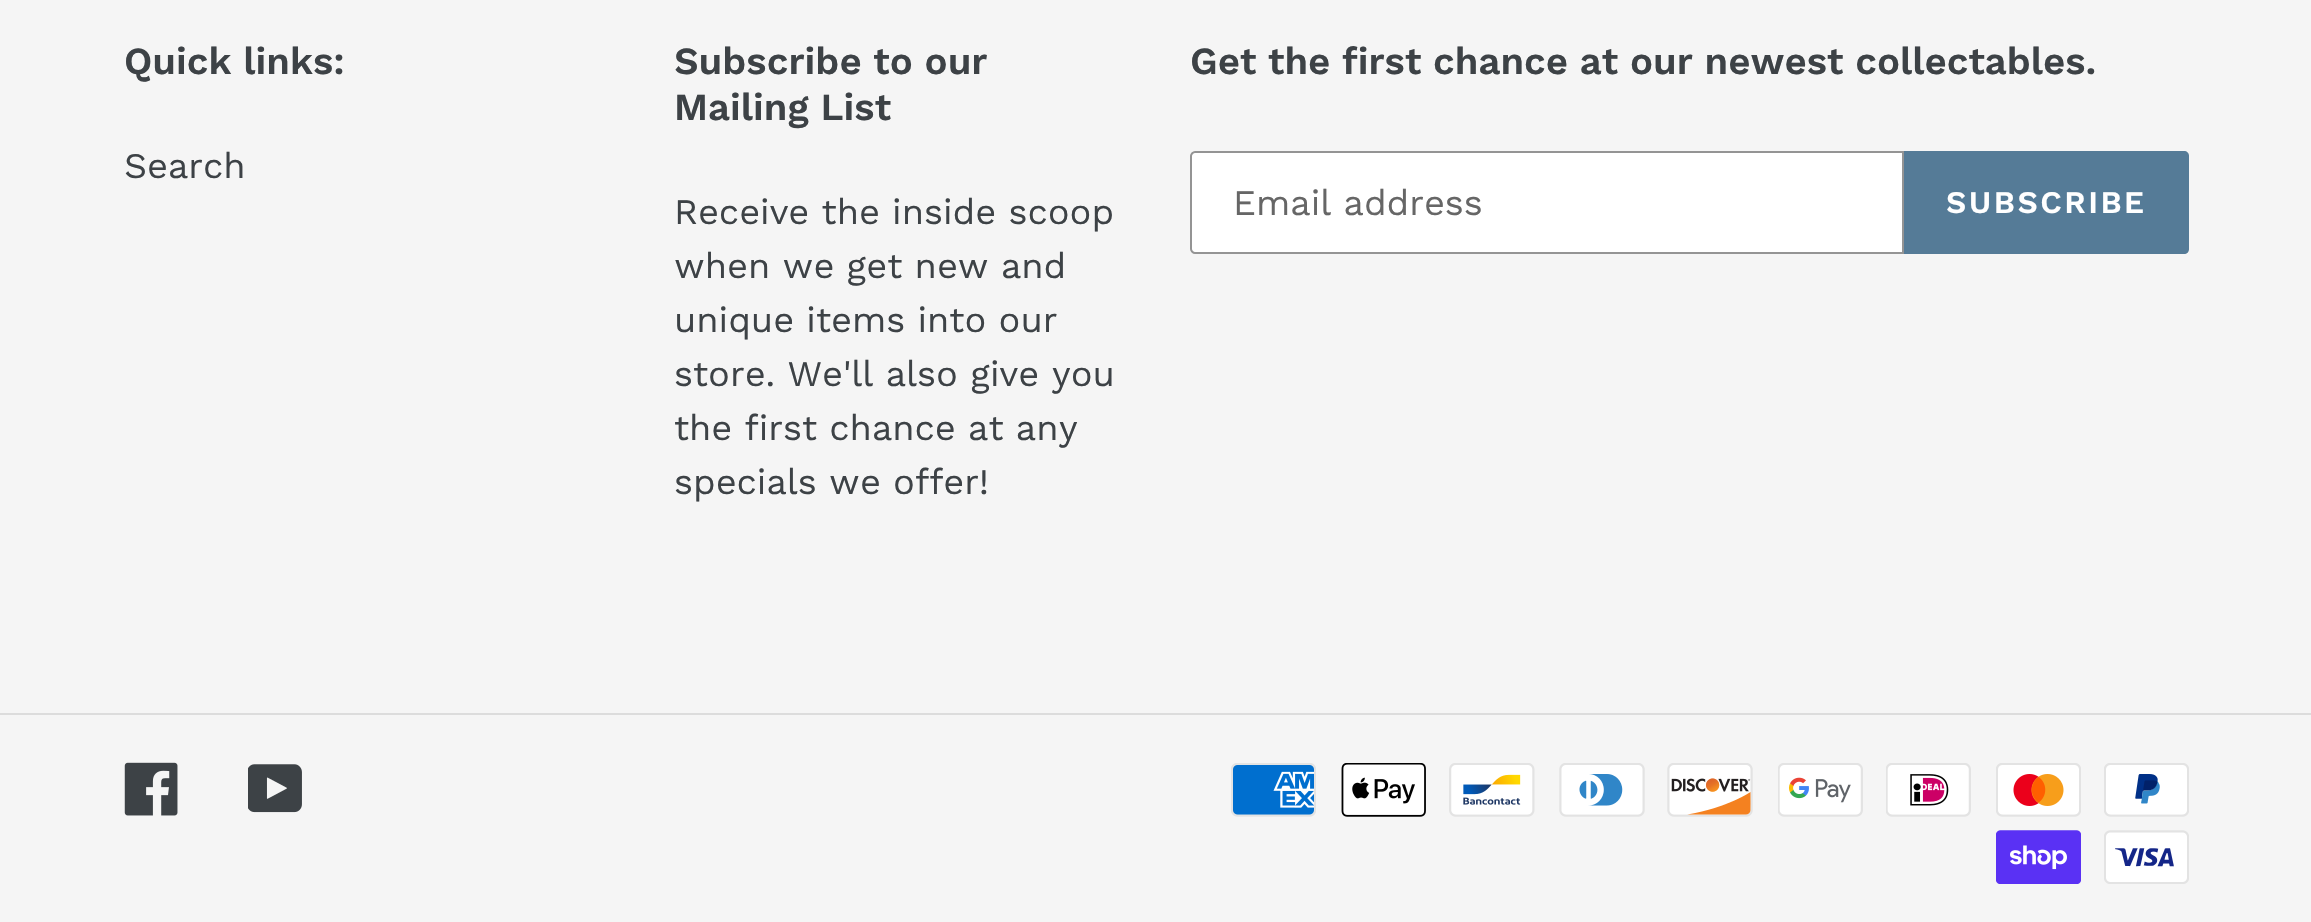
static SkFont makeFont(const char* family, int weight, float size, bool italic = false) {
  SkFontStyle style(weight, SkFontStyle::kNormal_Width,
    italic ? SkFontStyle::kItalic_Slant : SkFontStyle::kUpright_Slant);
  SkFont result(fontMgr->matchFamilyStyle(family, style), size);
  result.setSubpixel(true);
  return result;
}

static void text(SkCanvas* c, const char* s, float x, float y, const SkFont& font, SkColor color) {
  SkPaint ink(SkColor4f::FromColor(color));
  ink.setAntiAlias(true);
  c->drawString(s, x, y, font, ink);
}

static void spacedText(SkCanvas* c, const char* s, float x, float y, const SkFont& font, const SkPaint& ink, float letter, float word) {
  std::vector<SkGlyphID> glyphs(font.countText(s, strlen(s), SkTextEncoding::kUTF8));
  std::vector<float> xs(glyphs.size());
  font.textToGlyphs(s, strlen(s), SkTextEncoding::kUTF8, glyphs);
  font.getXPos(glyphs, xs, x);
  float extra = 0;
  for (size_t i = 0; i < glyphs.size(); i++) {
    xs[i] += extra;
    extra += letter + word * (glyphs[i] == font.unicharToGlyph(' '));
  }
  c->drawTextBlob(SkTextBlob::MakeFromPosHGlyphs(glyphs, xs, y, font), 0, 0, ink);
}

static void box(SkCanvas* c, float l, float t, float r, float b, SkColor color) {
  SkPaint ink(SkColor4f::FromColor(color));
  ink.setAntiAlias(true);
  c->drawRect(SkRect::MakeLTRB(l, t, r, b), ink);
}

static void picture(SkCanvas* c, const char* path, float l, float t, float r, float b) {
  auto image = SkImages::DeferredFromEncodedData(SkData::MakeFromFileName(path));
  c->drawImageRect(image, SkRect::MakeLTRB(l, t, r, b), SkSamplingOptions());
}

void draw(SkCanvas* c) {
  SkPaint paint;
  paint.setAntiAlias(true);
  c->clear(0xfff5f5f5);
  SkFont face1 = makeFont("Work Sans", 600, 38.25f);
  text(c, "Quick links:", 124, 74, face1, 0xff3d4246);
  SkFont face2 = makeFont("Work Sans", 400, 36);
  text(c, "Search", 124, 178, face2, 0xff3d4246);
  text(c, "Subscribe to our", 674, 74, face1, 0xff3d4246);
  text(c, "Mailing List", 674, 120, face1, 0xff3d4246);
  text(c, "Receive the inside scoop", 674, 224, face2, 0xff3d4246);
  text(c, "when we get new and", 674, 278, face2, 0xff3d4246);
  text(c, "unique items into our", 674, 332, face2, 0xff3d4246);
  text(c, "store. We'll also give you", 674, 386, face2, 0xff3d4246);
  text(c, "the first chance at any", 674, 440, face2, 0xff3d4246);
  text(c, "specials we offer!", 674, 494, face2, 0xff3d4246);
  text(c, "Get the first chance at our newest collectables.", 1190, 74, face1, 0xff3d4246);
  paint.setColor(0xffffffff);
  c->drawPath(SkPathBuilder().moveTo(1195, 152).lineTo(1903, 152).lineTo(1903, 253).lineTo(1195, 253).cubicTo(1193, 253, 1191, 251, 1191, 249).lineTo(1191, 156).cubicTo(1191, 154, 1193, 152, 1195, 152).close().detach(), paint);
  paint.setStyle(SkPaint::kStroke_Style);
  paint.setStrokeWidth(2);
  paint.setColor(0xff949494);
  c->drawPath(SkPathBuilder().moveTo(1195, 152).lineTo(1903, 152).lineTo(1903, 253).lineTo(1195, 253).cubicTo(1193, 253, 1191, 251, 1191, 249).lineTo(1191, 156).cubicTo(1191, 154, 1193, 152, 1195, 152).close().detach(), paint);
  text(c, "Email address", 1233, 215, face2, 0xff666666);
  paint.setStyle(SkPaint::kFill_Style);
  paint.setColor(0xff557b97);
  c->drawPath(SkPathBuilder().moveTo(1904, 151).lineTo(2184, 151).cubicTo(2187, 151, 2189, 153, 2189, 156).lineTo(2189, 249).cubicTo(2189, 252, 2187, 254, 2184, 254).lineTo(1904, 254).close().detach(), paint);
  SkFont face3 = makeFont("Work Sans", 600, 31.5f);
  paint.setColor(0xffffffff);
  spacedText(c, "SUBSCRIBE", 1946, 213, face3, paint, 2.5f, 0);
  box(c, 0, 713, 2311, 715, 0xffdcdcdc);
  picture(c, "img_01.png", 124, 762, 178, 816);
  picture(c, "img_02.png", 248, 764, 302, 813);
  picture(c, "img_03.png", 1231, 763, 1316, 817);
  picture(c, "img_04.png", 1341, 763, 1426, 817);
  picture(c, "img_05.png", 1449, 763, 1535, 817);
  picture(c, "img_06.png", 1559, 763, 1645, 817);
  picture(c, "img_07.png", 1667, 763, 1753, 817);
  picture(c, "img_08.png", 1778, 763, 1863, 817);
  picture(c, "img_09.png", 1886, 763, 1971, 817);
  picture(c, "img_10.png", 1996, 763, 2081, 817);
  picture(c, "img_11.png", 2104, 763, 2189, 817);
  picture(c, "img_12.png", 1996, 830, 2081, 884);
  picture(c, "img_13.png", 2104, 830, 2189, 884);
}
